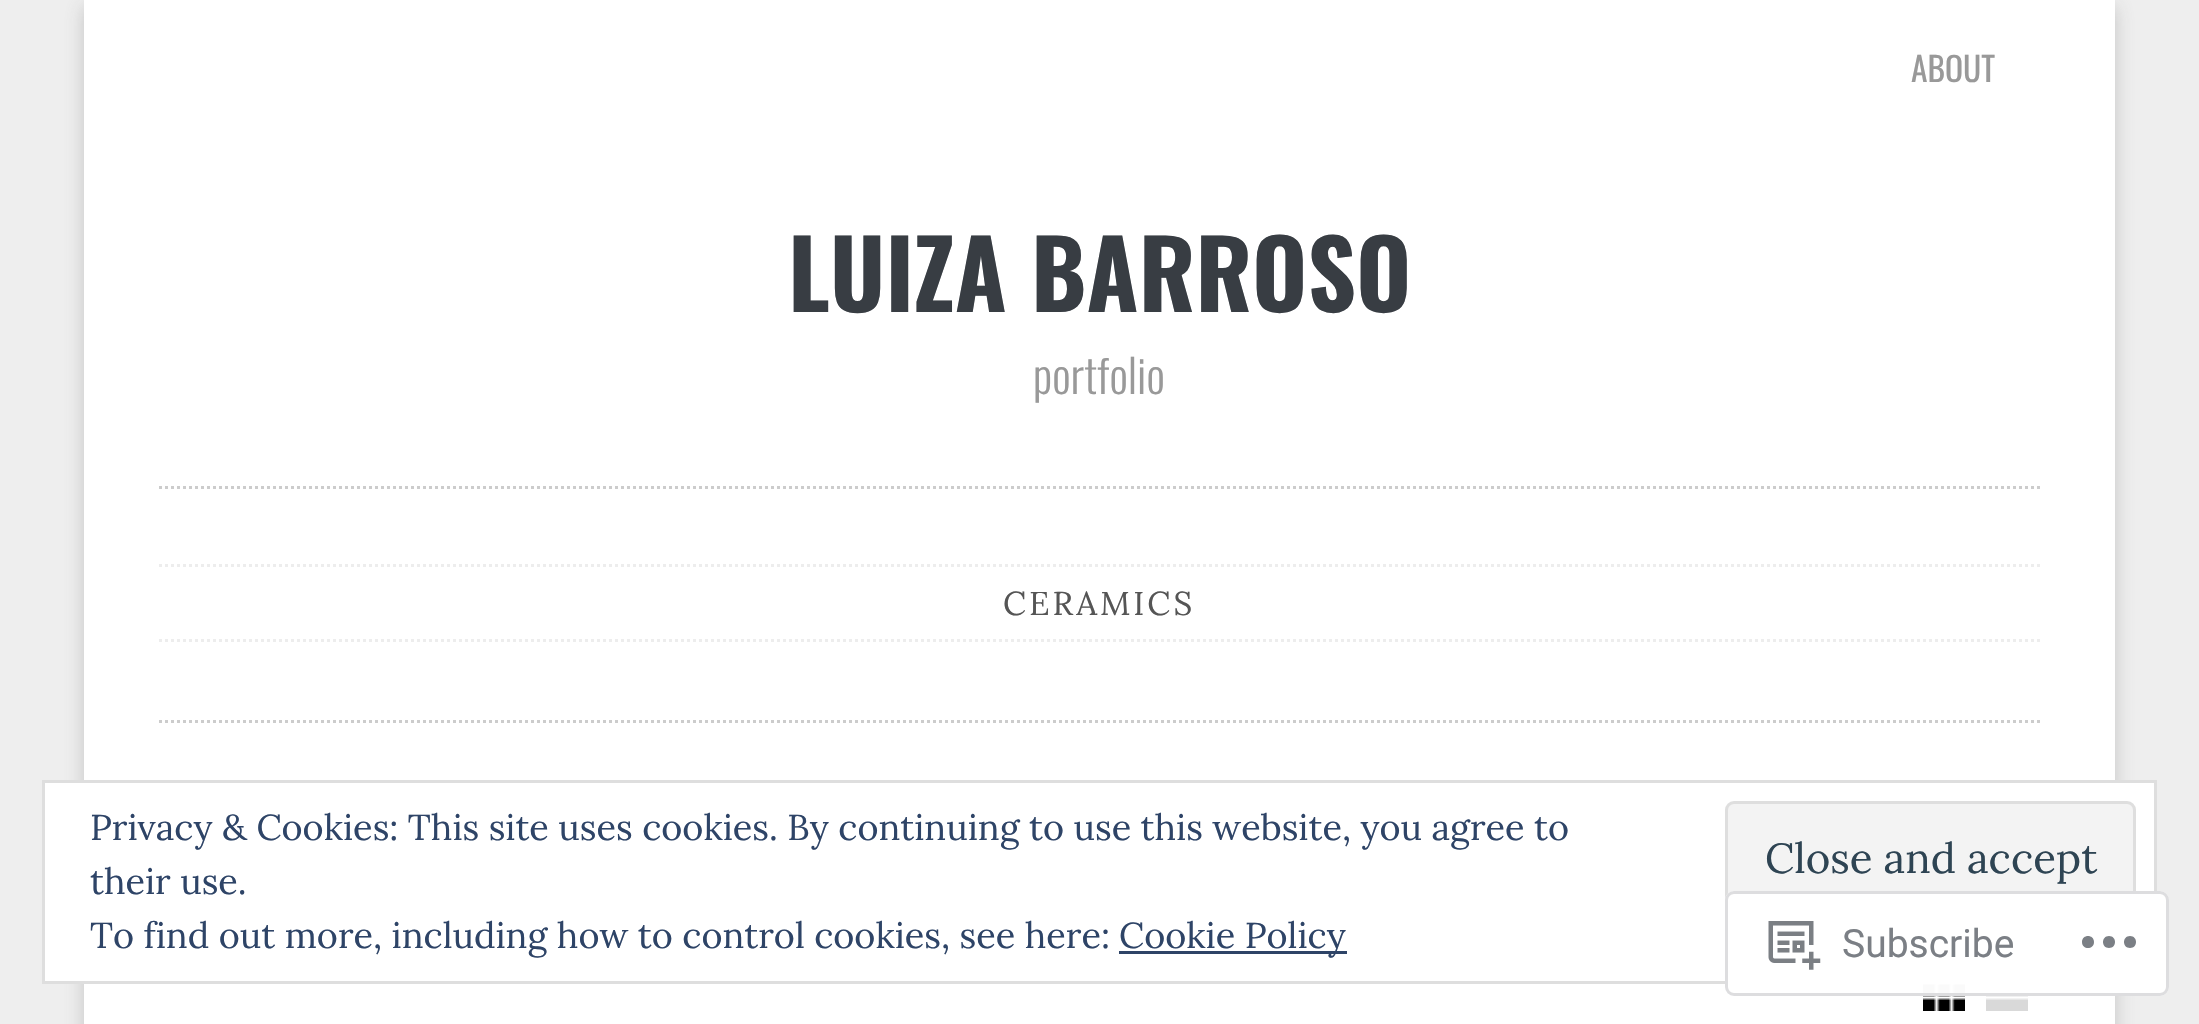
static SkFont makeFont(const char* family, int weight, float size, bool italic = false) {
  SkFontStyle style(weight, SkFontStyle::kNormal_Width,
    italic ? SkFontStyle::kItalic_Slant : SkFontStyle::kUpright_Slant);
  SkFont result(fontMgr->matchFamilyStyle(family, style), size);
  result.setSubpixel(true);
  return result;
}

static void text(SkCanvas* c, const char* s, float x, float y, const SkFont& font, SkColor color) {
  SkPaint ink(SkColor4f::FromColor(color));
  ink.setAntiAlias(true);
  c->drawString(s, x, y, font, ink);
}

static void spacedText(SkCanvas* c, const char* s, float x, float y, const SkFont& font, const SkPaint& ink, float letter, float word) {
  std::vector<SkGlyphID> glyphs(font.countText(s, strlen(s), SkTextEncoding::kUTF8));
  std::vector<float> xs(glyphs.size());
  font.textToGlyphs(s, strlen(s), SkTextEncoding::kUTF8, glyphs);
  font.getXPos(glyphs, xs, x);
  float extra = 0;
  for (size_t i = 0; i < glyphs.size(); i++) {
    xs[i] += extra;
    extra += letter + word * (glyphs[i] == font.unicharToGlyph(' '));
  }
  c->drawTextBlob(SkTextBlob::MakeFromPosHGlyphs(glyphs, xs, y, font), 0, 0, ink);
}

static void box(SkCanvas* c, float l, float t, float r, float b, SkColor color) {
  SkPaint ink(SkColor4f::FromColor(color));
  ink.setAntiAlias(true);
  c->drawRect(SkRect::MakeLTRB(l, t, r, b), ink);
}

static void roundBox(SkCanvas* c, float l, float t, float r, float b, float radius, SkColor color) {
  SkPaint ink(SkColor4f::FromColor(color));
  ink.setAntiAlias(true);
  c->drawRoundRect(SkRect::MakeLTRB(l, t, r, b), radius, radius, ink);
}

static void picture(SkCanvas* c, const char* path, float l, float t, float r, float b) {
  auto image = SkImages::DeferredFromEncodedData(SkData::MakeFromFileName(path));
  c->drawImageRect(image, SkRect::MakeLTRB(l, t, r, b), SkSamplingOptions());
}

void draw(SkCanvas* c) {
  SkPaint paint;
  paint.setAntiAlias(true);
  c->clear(0xffeeeeee);
  paint.setColor(0x4d646464);
  paint.setMaskFilter(SkMaskFilter::MakeBlur(kNormal_SkBlurStyle, 9));
  c->drawRect(SkRect::MakeLTRB(84, 6, 2115, 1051), paint);
  paint.setMaskFilter(nullptr);
  box(c, 84, 0, 2115, 1024, 0xffffffff);
  SkFont face1 = makeFont("Oswald", 400, 33.5f);
  text(c, "ABOUT", 1911, 82, face1, 0xff999999);
  paint.setStyle(SkPaint::kStroke_Style);
  paint.setStrokeWidth(3);
  paint.setColor(0xffcccccc);
  paint.setPathEffect(SkDashPathEffect::Make({{3, 3}}, 0));
  c->drawPath(SkPathBuilder().moveTo(159, 487.5f).lineTo(2040, 487.5f).detach(), paint);
  paint.setPathEffect(nullptr);
  SkFont face2 = makeFont("Oswald", 700, 94.5f);
  text(c, "LUIZA BARROSO", 788, 312, face2, 0xff383d43);
  SkFont face3 = makeFont("Oswald", 300, 46);
  text(c, "portfolio", 1033, 394, face3, 0xff999999);
  paint.setPathEffect(SkDashPathEffect::Make({{3, 3}}, 0));
  c->drawPath(SkPathBuilder().moveTo(159, 721.5f).lineTo(2040, 721.5f).detach(), paint);
  paint.setPathEffect(nullptr);
  paint.setColor(0xffededed);
  paint.setPathEffect(SkDashPathEffect::Make({{3, 3}}, 0));
  c->drawPath(SkPathBuilder().moveTo(159, 565.5f).lineTo(2040, 565.5f).detach(), paint);
  paint.setPathEffect(nullptr);
  paint.setPathEffect(SkDashPathEffect::Make({{3, 3}}, 0));
  c->drawPath(SkPathBuilder().moveTo(159, 640.5f).lineTo(2040, 640.5f).detach(), paint);
  paint.setPathEffect(nullptr);
  SkFont face4 = makeFont("Lora", 400, 33);
  paint.setStyle(SkPaint::kFill_Style);
  paint.setColor(0xff555555);
  spacedText(c, "CERAMICS", 1003, 615, face4, paint, 3, 0);
  picture(c, "img_01.png", 1923, 984, 1965, 1011);
  picture(c, "img_02.png", 1986, 984, 2028, 1011);
  paint.setColor(0xffffffff);
  c->drawRect(SkRect::MakeLTRB(43.5f, 781.5f, 2155.5f, 982.5f), paint);
  paint.setStyle(SkPaint::kStroke_Style);
  paint.setColor(0xffdedede);
  c->drawRect(SkRect::MakeLTRB(43.5f, 781.5f, 2155.5f, 982.5f), paint);
  SkFont face5 = makeFont("Lora", 400, 36);
  text(c, "Privacy & Cookies: This site uses cookies. By continuing to use this website, you agree to", 90, 840, face5, 0xff2e4467);
  text(c, "their use.", 90, 894, face5, 0xff2e4467);
  paint.setStyle(SkPaint::kFill_Style);
  paint.setColor(0xfff3f3f3);
  c->drawRoundRect(SkRect::MakeLTRB(1726.5f, 802.5f, 2134.5f, 916.5f), 7.5f, 7.5f, paint);
  paint.setStyle(SkPaint::kStroke_Style);
  paint.setColor(0xffdedede);
  c->drawRoundRect(SkRect::MakeLTRB(1726.5f, 802.5f, 2134.5f, 916.5f), 7.5f, 7.5f, paint);
  SkFont face6 = makeFont("Lora", 400, 42);
  text(c, "Close and accept", 1765, 873, face6, 0xff2e4453);
  text(c, "To find out more, including how to control cookies, see here:", 90, 948, face5, 0xff2e4467);
  box(c, 1119, 951, 1347, 954, 0xff2e4467);
  text(c, "Cookie Policy", 1119, 948, face5, 0xff2e4467);
  roundBox(c, 1725, 891, 2169, 996, 9, 0xfaffffff);
  paint.setColor(0xfadcdcde);
  c->drawRoundRect(SkRect::MakeLTRB(1726.5f, 892.5f, 2167.5f, 994.5f), 7.5f, 7.5f, paint);
  picture(c, "img_03.png", 1768, 921, 1821, 970);
  SkFont face7 = makeFont("Roboto", 400, 39);
  text(c, "Subscribe", 1842, 957, face7, 0xff7b7f85);
  paint.setStyle(SkPaint::kFill_Style);
  paint.setColor(0xff7b7f85);
  c->drawPath(SkPathBuilder().moveTo(2094, 942).cubicTo(2094, 950, 2082, 950, 2082, 942).cubicTo(2082, 934, 2094, 934, 2094, 942).close().moveTo(2130, 936).cubicTo(2122, 936, 2122, 948, 2130, 948).cubicTo(2138, 948, 2138, 936, 2130, 936).close().moveTo(2109, 936).cubicTo(2101, 936, 2101, 948, 2109, 948).cubicTo(2117, 948, 2117, 936, 2109, 936).close().detach(), paint);
}
